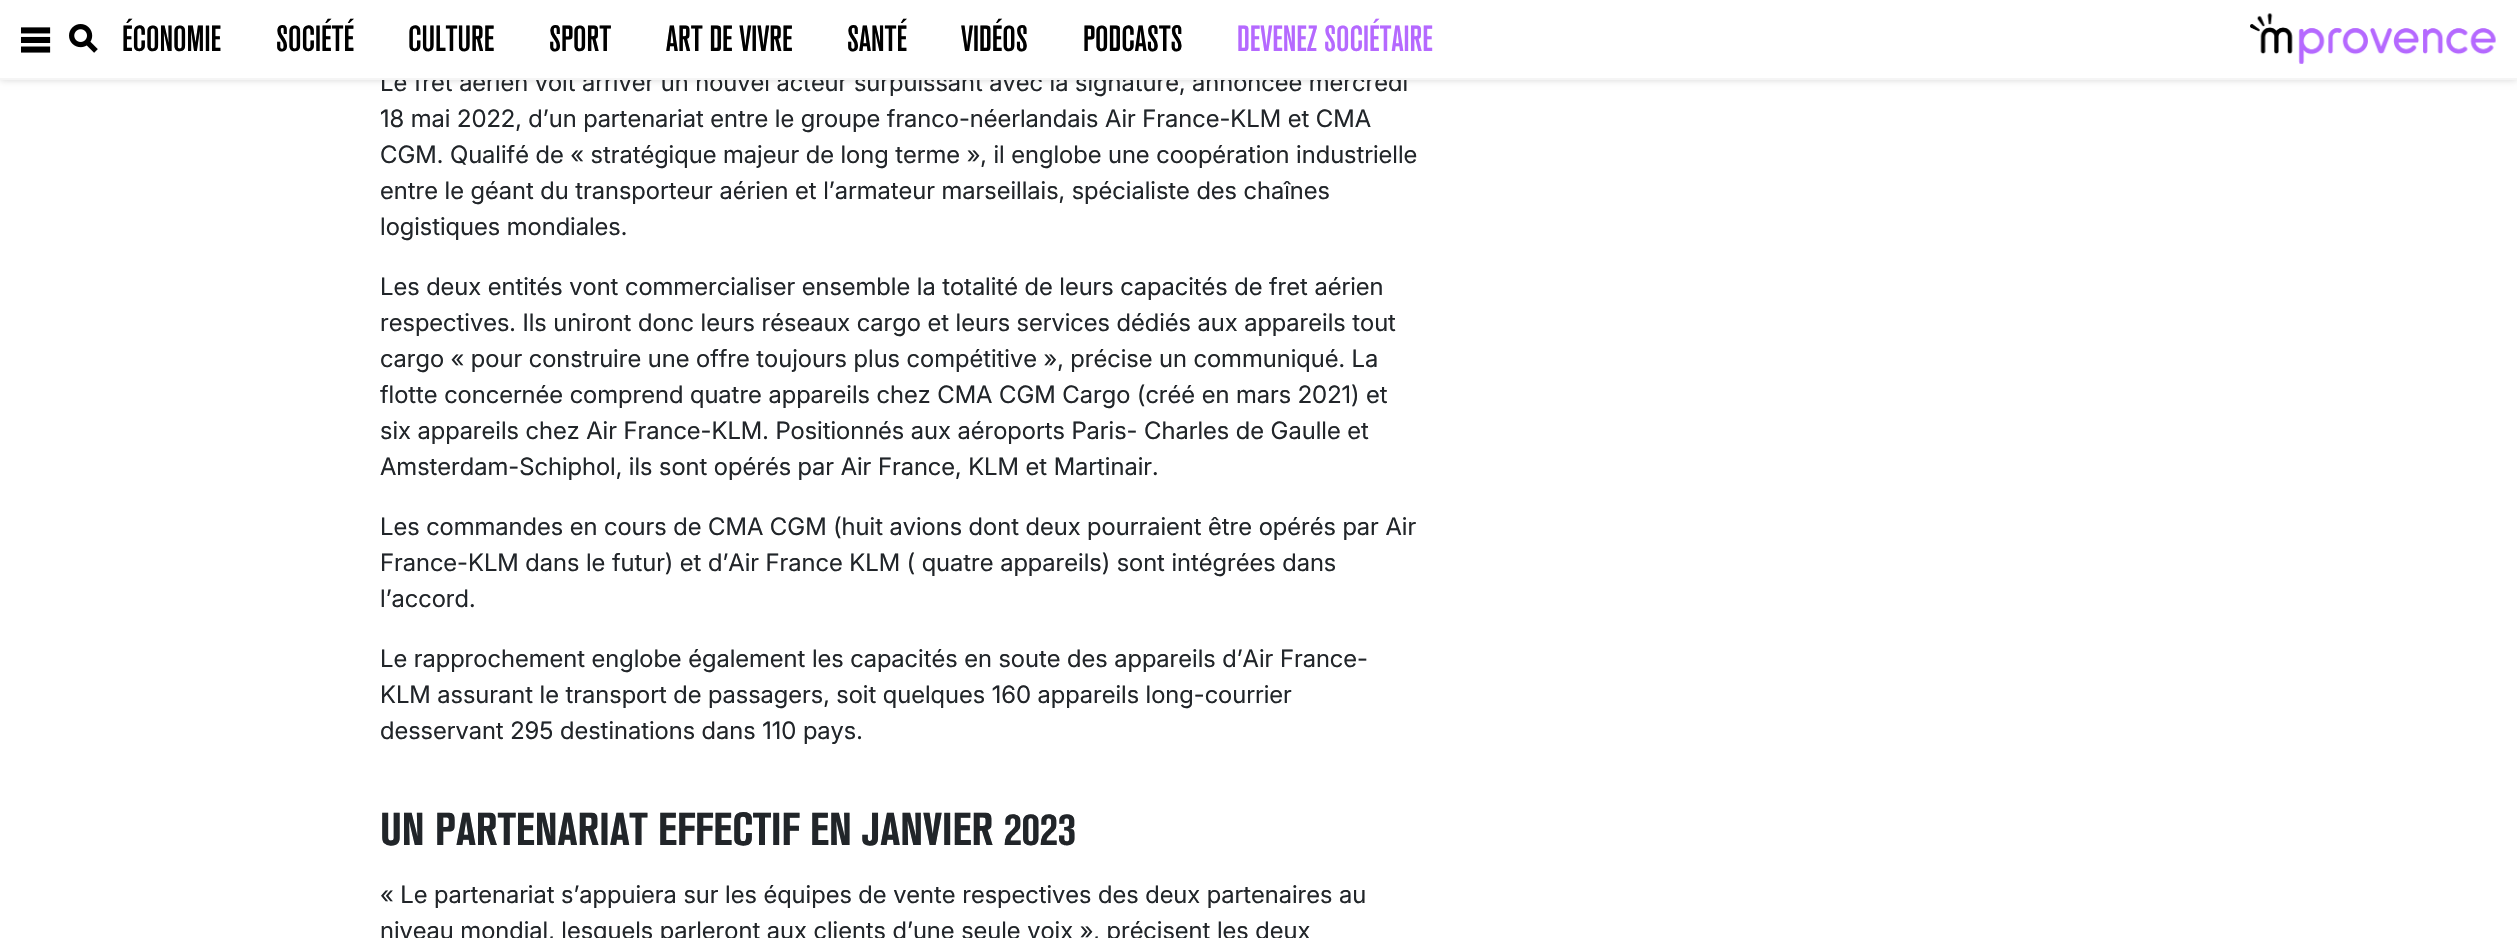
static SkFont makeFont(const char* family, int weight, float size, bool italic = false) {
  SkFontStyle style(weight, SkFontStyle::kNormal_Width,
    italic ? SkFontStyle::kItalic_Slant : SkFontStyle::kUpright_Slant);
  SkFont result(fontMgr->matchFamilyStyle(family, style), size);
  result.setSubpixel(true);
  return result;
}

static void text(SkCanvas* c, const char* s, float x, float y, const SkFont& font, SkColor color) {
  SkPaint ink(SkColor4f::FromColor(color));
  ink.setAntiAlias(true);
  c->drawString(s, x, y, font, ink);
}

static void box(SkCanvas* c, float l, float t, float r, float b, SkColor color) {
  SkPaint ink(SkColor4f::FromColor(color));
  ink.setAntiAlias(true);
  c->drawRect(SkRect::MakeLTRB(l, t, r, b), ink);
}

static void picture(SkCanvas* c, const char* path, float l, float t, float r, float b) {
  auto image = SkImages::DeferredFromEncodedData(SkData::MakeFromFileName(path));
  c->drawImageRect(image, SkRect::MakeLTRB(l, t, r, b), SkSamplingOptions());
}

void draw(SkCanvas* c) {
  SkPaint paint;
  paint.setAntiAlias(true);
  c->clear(0xffffffff);
  paint.setColor(0x29000000);
  paint.setMaskFilter(SkMaskFilter::MakeBlur(kNormal_SkBlurStyle, 3.5f));
  c->drawRect(SkRect::MakeLTRB(0, 0, 2517, 80), paint);
  paint.setMaskFilter(nullptr);
  SkFont face1 = makeFont("Inter", 400, 24);
  text(c, "Le fret aérien voit arriver un nouvel acteur surpuissant avec la signature, annoncée mercredi", 380, 91, face1, 0xff212529);
  box(c, 0, 0, 2517, 78, 0xffffffff);
  box(c, 0, 78, 2517, 80, 0xfff5f5f5);
  picture(c, "img_01.png", 21, 27, 51, 53);
  picture(c, "img_02.png", 69, 24, 98, 53);
  SkFont face2 = makeFont("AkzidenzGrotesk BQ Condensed", 500, 36);
  text(c, "ÉCONOMIE", 122, 51, face2, 0xff000000);
  text(c, "SOCIÉTÉ", 276, 51, face2, 0xff000000);
  text(c, "CULTURE", 408, 51, face2, 0xff000000);
  text(c, "SPORT", 549, 51, face2, 0xff000000);
  text(c, "ART DE VIVRE", 666, 51, face2, 0xff000000);
  text(c, "SANTÉ", 847, 51, face2, 0xff000000);
  text(c, "VIDÉOS", 961, 51, face2, 0xff000000);
  text(c, "PODCASTS", 1083, 51, face2, 0xff000000);
  text(c, "DEVENEZ SOCIÉTAIRE", 1237, 51, face2, 0xffb569ff);
  picture(c, "img_03.png", 2250, 13, 2496, 64);
  text(c, "18 mai 2022, d’un partenariat entre le groupe franco-néerlandais Air France-KLM et CMA", 380, 127, face1, 0xff212529);
  text(c, "CGM. Qualifé de « stratégique majeur de long terme », il englobe une coopération industrielle", 380, 163, face1, 0xff212529);
  text(c, "entre le géant du transporteur aérien et l’armateur marseillais, spécialiste des chaînes", 380, 199, face1, 0xff212529);
  text(c, "logistiques mondiales.", 380, 235, face1, 0xff212529);
  text(c, "Les deux entités vont commercialiser ensemble la totalité de leurs capacités de fret aérien", 380, 295, face1, 0xff212529);
  text(c, "respectives. Ils uniront donc leurs réseaux cargo et leurs services dédiés aux appareils tout", 380, 331, face1, 0xff212529);
  text(c, "cargo « pour construire une offre toujours plus compétitive », précise un communiqué. La", 380, 367, face1, 0xff212529);
  text(c, "flotte concernée comprend quatre appareils chez CMA CGM Cargo (créé en mars 2021) et", 380, 403, face1, 0xff212529);
  text(c, "six appareils chez Air France-KLM. Positionnés aux aéroports Paris- Charles de Gaulle et", 380, 439, face1, 0xff212529);
  text(c, "Amsterdam-Schiphol, ils sont opérés par Air France, KLM et Martinair.", 380, 475, face1, 0xff212529);
  text(c, "Les commandes en cours de CMA CGM (huit avions dont deux pourraient être opérés par Air", 380, 535, face1, 0xff212529);
  text(c, "France-KLM dans le futur) et d’Air France KLM ( quatre appareils) sont intégrées dans", 380, 571, face1, 0xff212529);
  text(c, "l’accord.", 380, 607, face1, 0xff212529);
  text(c, "Le rapprochement englobe également les capacités en soute des appareils d’Air France-", 380, 667, face1, 0xff212529);
  text(c, "KLM assurant le transport de passagers, soit quelques 160 appareils long-courrier", 380, 703, face1, 0xff212529);
  text(c, "desservant 295 destinations dans 110 pays.", 380, 739, face1, 0xff212529);
  SkFont face3 = makeFont("AkzidenzGrotesk BQ Condensed", 700, 45.6f);
  text(c, "UN PARTENARIAT EFFECTIF EN JANVIER 2023", 380, 845, face3, 0xff212529);
  text(c, "« Le partenariat s’appuiera sur les équipes de vente respectives des deux partenaires au", 380, 903, face1, 0xff212529);
  text(c, "niveau mondial, lesquels parleront aux clients d’une seule voix », précisent les deux", 380, 939, face1, 0xff212529);
}
